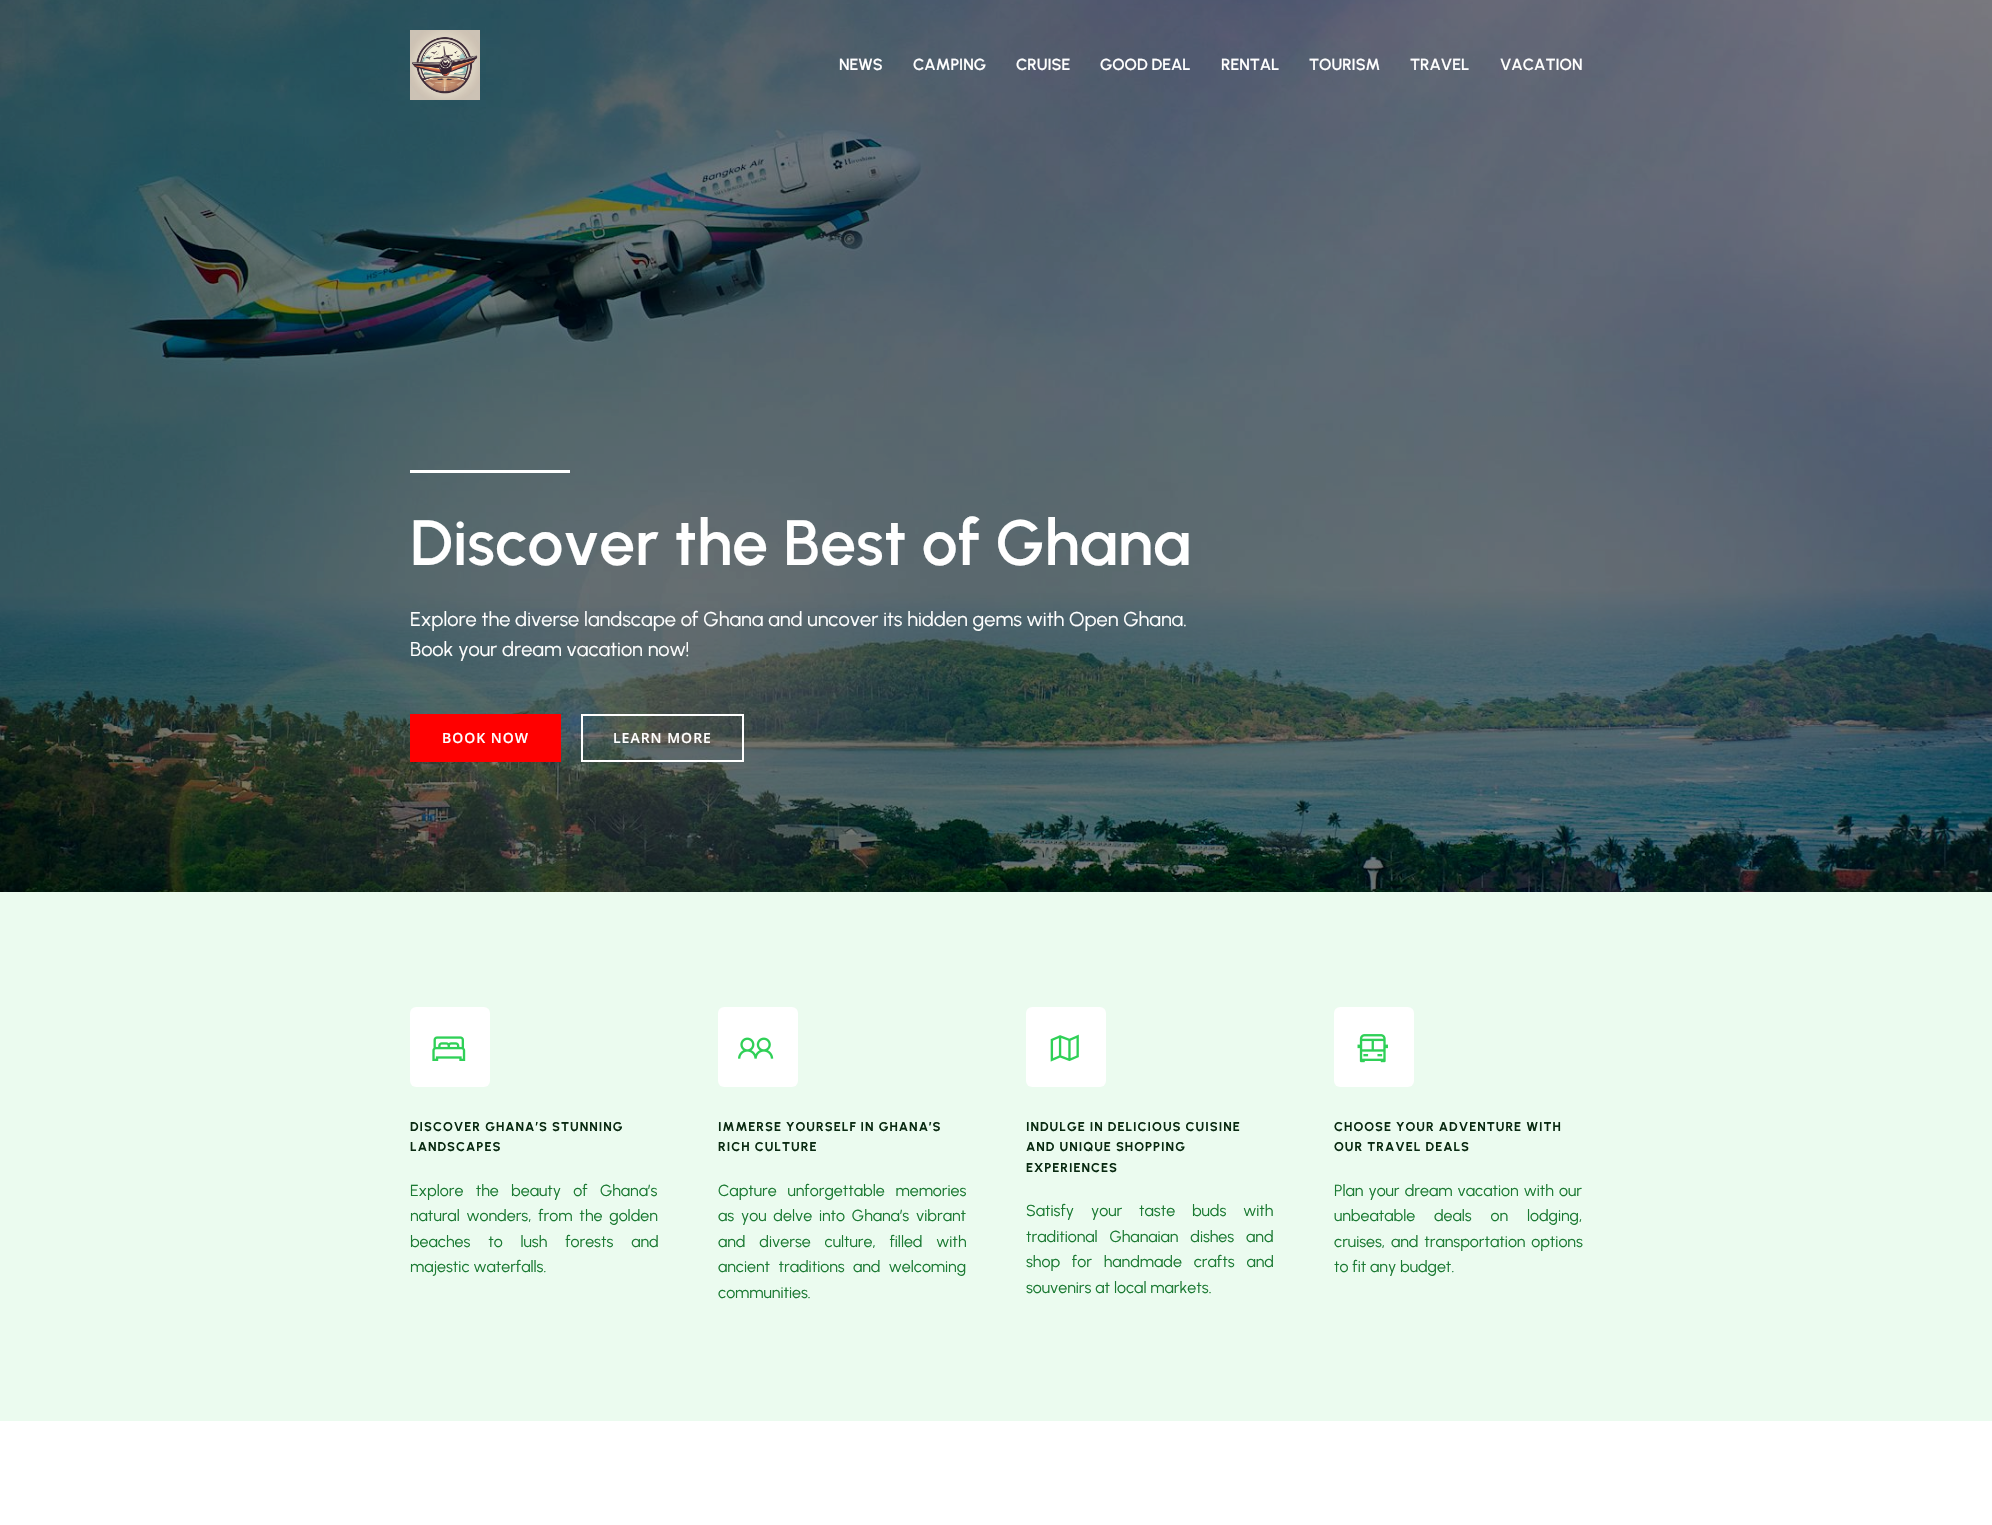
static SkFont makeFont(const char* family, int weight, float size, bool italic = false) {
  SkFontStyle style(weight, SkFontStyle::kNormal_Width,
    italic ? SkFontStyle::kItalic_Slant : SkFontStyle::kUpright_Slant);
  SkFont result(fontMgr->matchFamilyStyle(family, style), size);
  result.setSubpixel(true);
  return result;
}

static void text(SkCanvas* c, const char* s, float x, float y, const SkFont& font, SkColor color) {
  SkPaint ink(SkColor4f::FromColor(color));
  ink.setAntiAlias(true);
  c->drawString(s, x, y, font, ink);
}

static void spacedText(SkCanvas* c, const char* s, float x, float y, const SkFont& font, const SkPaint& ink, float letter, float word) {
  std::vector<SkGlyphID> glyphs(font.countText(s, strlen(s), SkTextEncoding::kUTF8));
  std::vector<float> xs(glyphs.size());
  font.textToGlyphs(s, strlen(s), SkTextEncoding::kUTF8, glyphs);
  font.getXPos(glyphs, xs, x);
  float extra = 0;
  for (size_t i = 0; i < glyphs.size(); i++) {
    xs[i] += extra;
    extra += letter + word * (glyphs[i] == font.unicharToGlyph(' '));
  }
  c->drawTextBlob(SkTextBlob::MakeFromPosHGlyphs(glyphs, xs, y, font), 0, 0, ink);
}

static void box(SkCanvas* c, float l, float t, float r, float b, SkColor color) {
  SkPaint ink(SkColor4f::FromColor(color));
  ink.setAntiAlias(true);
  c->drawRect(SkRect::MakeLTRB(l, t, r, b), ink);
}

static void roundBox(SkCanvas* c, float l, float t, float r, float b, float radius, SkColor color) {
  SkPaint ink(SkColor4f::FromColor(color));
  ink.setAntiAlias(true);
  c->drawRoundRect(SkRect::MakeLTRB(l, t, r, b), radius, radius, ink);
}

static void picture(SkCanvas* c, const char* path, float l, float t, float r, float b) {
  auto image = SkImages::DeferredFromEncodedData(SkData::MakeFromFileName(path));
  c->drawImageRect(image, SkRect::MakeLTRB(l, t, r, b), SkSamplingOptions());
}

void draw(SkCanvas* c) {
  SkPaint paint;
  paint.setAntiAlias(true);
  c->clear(0xffffffff);
  picture(c, "img_02.png", 0, 0, 1992, 892);
  picture(c, "img_01.png", 410, 30, 480, 100);
  SkFont face1 = makeFont("Urbanist", 600, 16);
  text(c, "NEWS", 839, 70, face1, 0xffffffff);
  text(c, "CAMPING", 913, 70, face1, 0xffffffff);
  text(c, "CRUISE", 1016, 70, face1, 0xffffffff);
  text(c, "GOOD DEAL", 1100, 70, face1, 0xffffffff);
  text(c, "RENTAL", 1221, 70, face1, 0xffffffff);
  text(c, "TOURISM", 1309, 70, face1, 0xffffffff);
  text(c, "TRAVEL", 1410, 70, face1, 0xffffffff);
  text(c, "VACATION", 1500, 70, face1, 0xffffffff);
  box(c, 410, 470, 570, 473, 0xffffffff);
  SkFont face2 = makeFont("Urbanist", 600, 64);
  text(c, "Discover the Best of Ghana", 410, 565, face2, 0xffffffff);
  SkFont face3 = makeFont("Urbanist", 400, 20);
  text(c, "Explore the diverse landscape of Ghana and uncover its hidden gems with Open Ghana.", 410, 626, face3, 0xffffffff);
  text(c, "Book your dream vacation now!", 410, 656, face3, 0xffffffff);
  box(c, 410, 714, 561, 762, 0xffff0000);
  SkFont face4 = makeFont("Open Sans", 600, 14);
  paint.setColor(0xffffffff);
  spacedText(c, "BOOK NOW", 442, 743, face4, paint, 1, 0);
  paint.setStyle(SkPaint::kStroke_Style);
  paint.setStrokeWidth(2);
  c->drawRect(SkRect::MakeLTRB(582, 715, 743, 761), paint);
  paint.setStyle(SkPaint::kFill_Style);
  spacedText(c, "LEARN MORE", 613, 743, face4, paint, 1, 0);
  box(c, 0, 892, 1992, 1421, 0xffebfbef);
  roundBox(c, 410, 1007, 490, 1087, 6, 0xffffffff);
  picture(c, "img_03.png", 432, 1036, 466, 1061);
  SkFont face5 = makeFont("Urbanist", 700, 12.75f);
  paint.setColor(0xff092a11);
  spacedText(c, "DISCOVER GHANA’S STUNNING", 410, 1131, face5, paint, 1, 0);
  spacedText(c, "LANDSCAPES", 410, 1151, face5, paint, 1, 0);
  SkFont face6 = makeFont("Urbanist", 400, 16);
  paint.setColor(0xff1b7a33);
  spacedText(c, "Explore the beauty of Ghana’s", 410, 1196, face6, paint, 0, 8.5f);
  spacedText(c, "natural wonders, from the golden", 410, 1221, face6, paint, 0, 3);
  spacedText(c, "beaches to lush forests and", 410, 1247, face6, paint, 0, 14);
  text(c, "majestic waterfalls.", 410, 1272, face6, 0xff1b7a33);
  roundBox(c, 718, 1007, 798, 1087, 6, 0xffffffff);
  picture(c, "img_04.png", 738, 1037, 774, 1059);
  paint.setColor(0xff092a11);
  spacedText(c, "IMMERSE YOURSELF IN GHANA’S", 718, 1131, face5, paint, 1, 0);
  spacedText(c, "RICH CULTURE", 718, 1151, face5, paint, 1, 0);
  paint.setColor(0xff1b7a33);
  spacedText(c, "Capture unforgettable memories", 718, 1196, face6, paint, 0, 7);
  spacedText(c, "as you delve into Ghana’s vibrant", 718, 1221, face6, paint, 0, 3);
  spacedText(c, "and diverse culture, filled with", 718, 1247, face6, paint, 0, 10);
  spacedText(c, "ancient traditions and welcoming", 718, 1272, face6, paint, 0, 4.5f);
  text(c, "communities.", 718, 1298, face6, 0xff1b7a33);
  roundBox(c, 1026, 1007, 1106, 1087, 6, 0xffffffff);
  picture(c, "img_05.png", 1050, 1034, 1079, 1062);
  paint.setColor(0xff092a11);
  spacedText(c, "INDULGE IN DELICIOUS CUISINE", 1026, 1131, face5, paint, 1, 0);
  spacedText(c, "AND UNIQUE SHOPPING", 1026, 1151, face5, paint, 1, 0);
  spacedText(c, "EXPERIENCES", 1026, 1172, face5, paint, 1, 0);
  paint.setColor(0xff1b7a33);
  spacedText(c, "Satisfy your taste buds with", 1026, 1216, face6, paint, 0, 13);
  spacedText(c, "traditional Ghanaian dishes and", 1026, 1242, face6, paint, 0, 8);
  spacedText(c, "shop for handmade crafts and", 1026, 1267, face6, paint, 0, 8);
  text(c, "souvenirs at local markets.", 1026, 1293, face6, 0xff1b7a33);
  roundBox(c, 1334, 1007, 1414, 1087, 6, 0xffffffff);
  picture(c, "img_06.png", 1357, 1034, 1388, 1063);
  paint.setColor(0xff092a11);
  spacedText(c, "CHOOSE YOUR ADVENTURE WITH", 1334, 1131, face5, paint, 1, 0);
  spacedText(c, "OUR TRAVEL DEALS", 1334, 1151, face5, paint, 1, 0);
  paint.setColor(0xff1b7a33);
  spacedText(c, "Plan your dream vacation with our", 1334, 1196, face6, paint, 0, 1.25f);
  spacedText(c, "unbeatable deals on lodging,", 1334, 1221, face6, paint, 0, 15);
  spacedText(c, "cruises, and transportation options", 1334, 1247, face6, paint, 0, 2);
  text(c, "to fit any budget.", 1334, 1272, face6, 0xff1b7a33);
}
